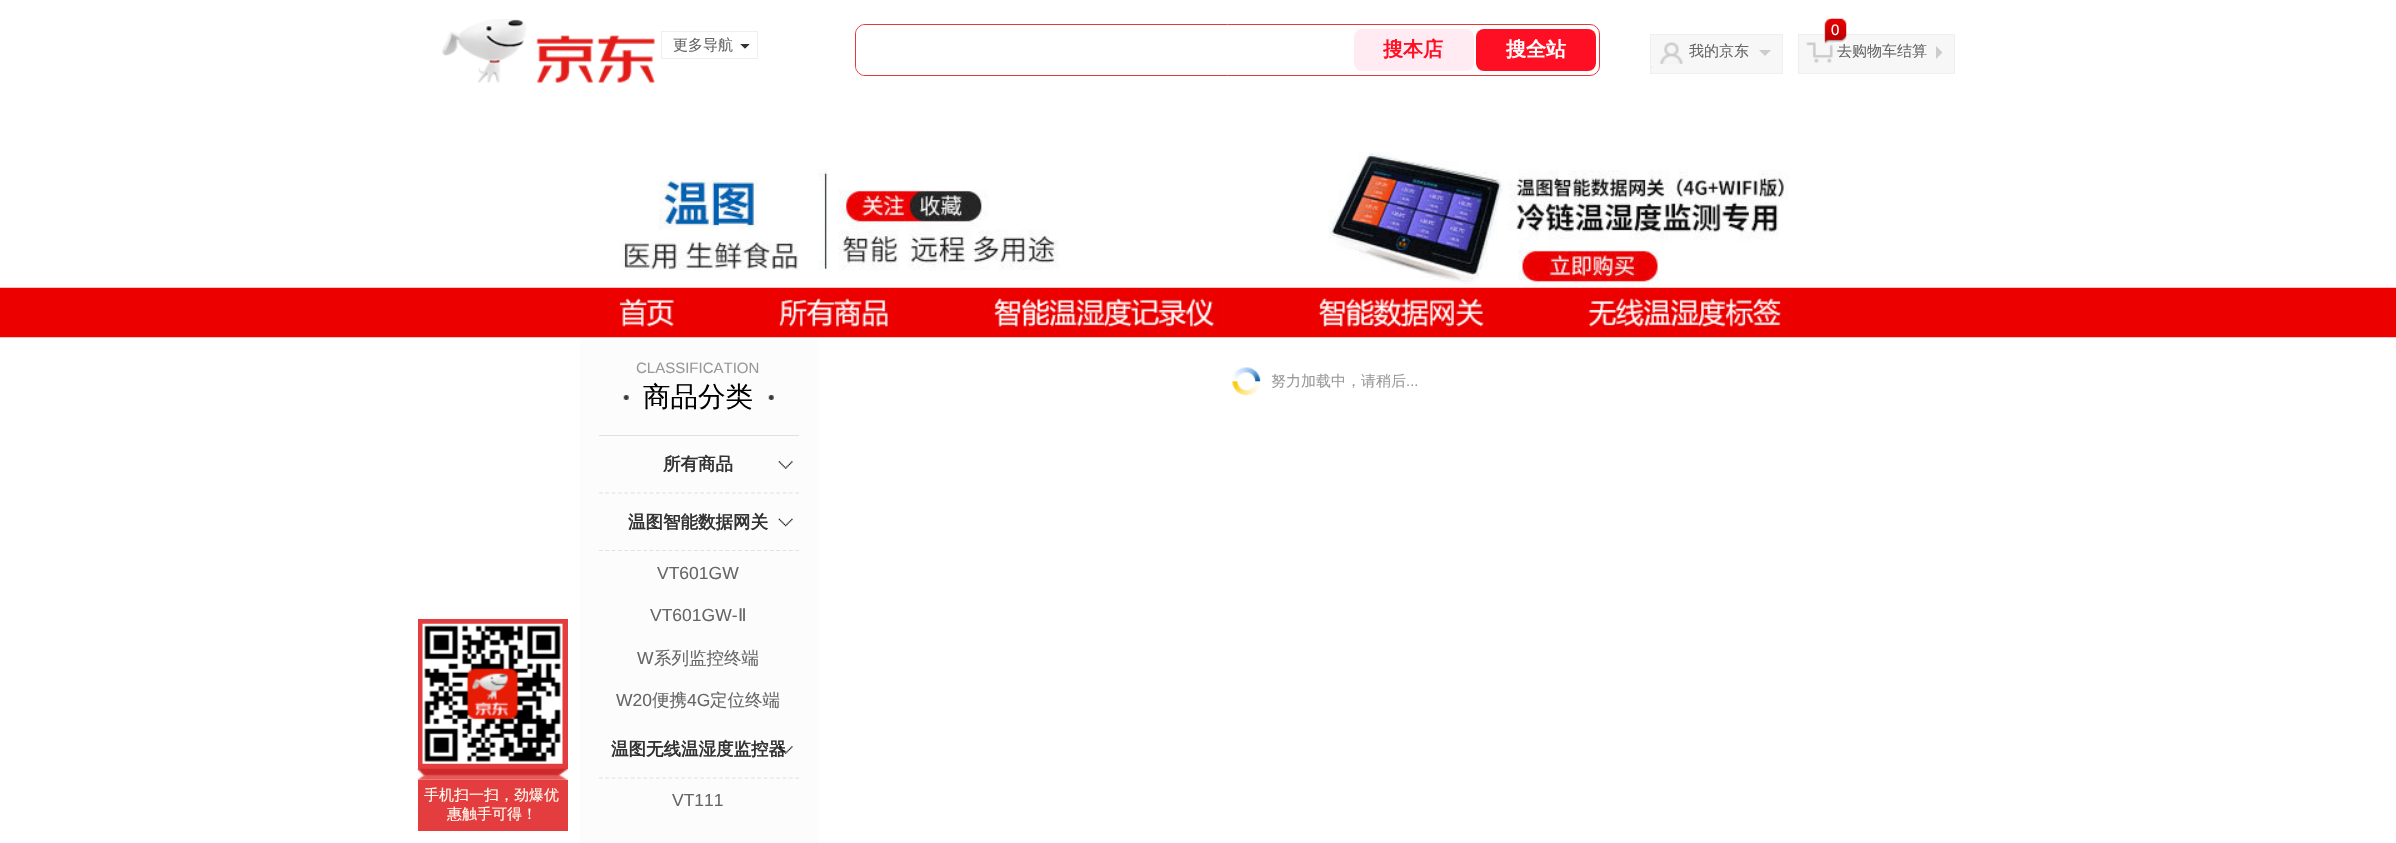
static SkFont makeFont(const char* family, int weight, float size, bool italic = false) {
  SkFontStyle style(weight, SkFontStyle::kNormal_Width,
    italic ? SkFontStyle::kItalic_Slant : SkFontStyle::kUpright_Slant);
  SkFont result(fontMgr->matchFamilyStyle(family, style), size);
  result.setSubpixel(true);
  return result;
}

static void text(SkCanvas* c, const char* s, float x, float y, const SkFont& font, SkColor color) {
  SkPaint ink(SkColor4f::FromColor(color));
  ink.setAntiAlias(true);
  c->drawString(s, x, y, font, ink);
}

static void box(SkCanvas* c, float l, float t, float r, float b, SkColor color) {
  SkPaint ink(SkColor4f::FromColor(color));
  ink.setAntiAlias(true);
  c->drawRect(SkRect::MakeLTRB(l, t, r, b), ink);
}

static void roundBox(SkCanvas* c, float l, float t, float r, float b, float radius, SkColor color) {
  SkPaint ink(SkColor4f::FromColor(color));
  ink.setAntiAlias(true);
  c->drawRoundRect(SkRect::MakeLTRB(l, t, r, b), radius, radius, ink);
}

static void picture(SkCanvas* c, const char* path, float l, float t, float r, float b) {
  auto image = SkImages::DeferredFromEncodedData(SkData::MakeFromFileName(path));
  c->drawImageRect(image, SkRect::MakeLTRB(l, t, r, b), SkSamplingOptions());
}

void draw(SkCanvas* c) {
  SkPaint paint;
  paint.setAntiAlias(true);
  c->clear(0xffffffff);
  picture(c, "img_01.png", 442, 19, 655, 83);
  paint.setStyle(SkPaint::kStroke_Style);
  paint.setStrokeWidth(1);
  paint.setColor(0xffeeeeee);
  c->drawRect(SkRect::MakeLTRB(661.5f, 31.5f, 757.5f, 58.5f), paint);
  SkFont face1 = makeFont("WenQuanYi Zen Hei", 500, 15);
  text(c, "更多导航", 673, 50, face1, 0xff666666);
  paint.setStyle(SkPaint::kFill_Style);
  paint.setColor(0xff333333);
  c->drawPath(SkPathBuilder().moveTo(740, 44).lineTo(750, 44).lineTo(745, 49).close().detach(), paint);
  paint.setColor(0xffffffff);
  c->drawPath(SkPathBuilder().moveTo(750, 44).lineTo(750, 54).lineTo(745, 49).close().moveTo(740, 54).lineTo(740, 44).lineTo(745, 49).close().detach(), paint);
  paint.setStyle(SkPaint::kStroke_Style);
  paint.setColor(0xffe4393c);
  c->drawRoundRect(SkRect::MakeLTRB(855.5f, 24.5f, 1599.5f, 75.5f), 9.5f, 9.5f, paint);
  paint.setStyle(SkPaint::kFill_Style);
  paint.setColor(0xffffffff);
  c->drawPath(SkPathBuilder().moveTo(866, 25).lineTo(1356, 25).lineTo(1356, 75).lineTo(866, 75).cubicTo(860.5f, 75, 856, 70.5f, 856, 65).lineTo(856, 35).cubicTo(856, 29.5f, 860.5f, 25, 866, 25).close().detach(), paint);
  roundBox(c, 1354, 29, 1474, 71, 8, 0xffffebf1);
  SkFont face2 = makeFont("WenQuanYi Zen Hei", 700, 20);
  text(c, "搜本店", 1383, 56, face2, 0xffff0f23);
  roundBox(c, 1476, 29, 1596, 71, 8, 0xffff0f23);
  text(c, "搜全站", 1506, 56, face2, 0xffffffff);
  box(c, 1651, 35, 1782, 73, 0xfff7f7f7);
  picture(c, "img_02.png", 1651, 42, 1683, 68);
  paint.setStyle(SkPaint::kStroke_Style);
  paint.setColor(0xffefefef);
  c->drawRect(SkRect::MakeLTRB(1650.5f, 34.5f, 1782.5f, 73.5f), paint);
  text(c, "我的京东", 1689, 56, face1, 0xff666666);
  paint.setStyle(SkPaint::kFill_Style);
  paint.setColor(0xffcccccc);
  c->drawPath(SkPathBuilder().moveTo(1759, 50).lineTo(1771, 50).lineTo(1765, 56).close().detach(), paint);
  box(c, 1799, 35, 1954, 73, 0xfff7f7f7);
  picture(c, "img_03.png", 1806, 42, 1833, 63);
  paint.setStyle(SkPaint::kStroke_Style);
  paint.setColor(0xffefefef);
  c->drawRect(SkRect::MakeLTRB(1798.5f, 34.5f, 1954.5f, 73.5f), paint);
  text(c, "去购物车结算", 1837, 56, face1, 0xff666666);
  picture(c, "img_04.png", 1824, 18, 1847, 44);
  picture(c, "img_05.png", 1831, 18, 1847, 43);
  SkFont face3 = makeFont("Liberation Sans", 400, 15);
  text(c, "0", 1831, 35, face3, 0xffffffff);
  paint.setStyle(SkPaint::kFill_Style);
  paint.setColor(0xffcccccc);
  c->drawPath(SkPathBuilder().moveTo(1936, 59).lineTo(1936, 46).lineTo(1942.5f, 52.5f).close().detach(), paint);
  box(c, 418, 619, 568, 769, 0xffe43d3f);
  picture(c, "img_06.png", 422, 623, 563, 764);
  picture(c, "img_07.png", 417, 768, 568, 781);
  box(c, 418, 780, 568, 831, 0xffe43d3f);
  text(c, "手机扫一扫，劲爆优", 424, 800, face1, 0xfffffbee);
  text(c, "惠触手可得！", 447, 819, face1, 0xfffffbee);
  picture(c, "img_08.png", 620, 152, 1789, 287);
  picture(c, "img_09.png", 0, 287, 2396, 338);
  box(c, 580, 338, 818, 843, 0xfffcfcfc);
  text(c, "CLASSIFICATION", 636, 373, face3, 0xff999999);
  box(c, 599, 435, 799, 436, 0xffe1e1e1);
  picture(c, "img_10.png", 623, 395, 629, 400);
  SkFont face4 = makeFont("WenQuanYi Zen Hei", 500, 27.5f);
  text(c, "商品分类", 643, 406, face4, 0xff000000);
  picture(c, "img_11.png", 768, 395, 774, 400);
  paint.setStyle(SkPaint::kStroke_Style);
  paint.setStrokeWidth(1.2f);
  paint.setColor(0xffe1e1e1);
  paint.setPathEffect(SkDashPathEffect::Make({{3.75f, 2.58f}}, 0));
  c->drawPath(SkPathBuilder().moveTo(599, 493).lineTo(799, 493).detach(), paint);
  paint.setPathEffect(nullptr);
  SkFont face5 = makeFont("WenQuanYi Zen Hei", 700, 17.5f);
  text(c, "所有商品", 663, 470, face5, 0xff333333);
  picture(c, "img_12.png", 778, 461, 793, 469);
  paint.setPathEffect(SkDashPathEffect::Make({{3.75f, 2.58f}}, 0));
  c->drawPath(SkPathBuilder().moveTo(599, 550.5f).lineTo(799, 550.5f).detach(), paint);
  paint.setPathEffect(nullptr);
  text(c, "温图智能数据网关", 628, 528, face5, 0xff333333);
  picture(c, "img_13.png", 778, 518, 793, 527);
  SkFont face6 = makeFont("Liberation Sans", 400, 17.5f);
  text(c, "VT601GW", 657, 579, face6, 0xff666666);
  text(c, "VT601GW-", 650, 621, face6, 0xff666666);
  SkFont face7 = makeFont("DejaVu Sans", 400, 17.5f);
  text(c, "Ⅱ", 738, 621, face7, 0xff666666);
  text(c, "W", 637, 664, face6, 0xff666666);
  SkFont face8 = makeFont("WenQuanYi Zen Hei", 500, 17.5f);
  text(c, "系列监控终端", 654, 664, face8, 0xff666666);
  text(c, "W20", 616, 706, face6, 0xff666666);
  text(c, "便携", 652, 706, face8, 0xff666666);
  text(c, "4G", 687, 706, face6, 0xff666666);
  text(c, "定位终端", 710, 706, face8, 0xff666666);
  paint.setPathEffect(SkDashPathEffect::Make({{3.75f, 2.58f}}, 0));
  c->drawPath(SkPathBuilder().moveTo(599, 778).lineTo(799, 778).detach(), paint);
  paint.setPathEffect(nullptr);
  text(c, "温图无线温湿度监控器", 611, 755, face5, 0xff333333);
  picture(c, "img_14.png", 778, 746, 793, 754);
  text(c, "VT111", 672, 806, face6, 0xff666666);
  picture(c, "img_15.png", 1232, 367, 1261, 396);
  text(c, "努力加载中，请稍后", 1271, 386, face1, 0xff999999);
  text(c, "...", 1406, 386, face3, 0xff999999);
}
